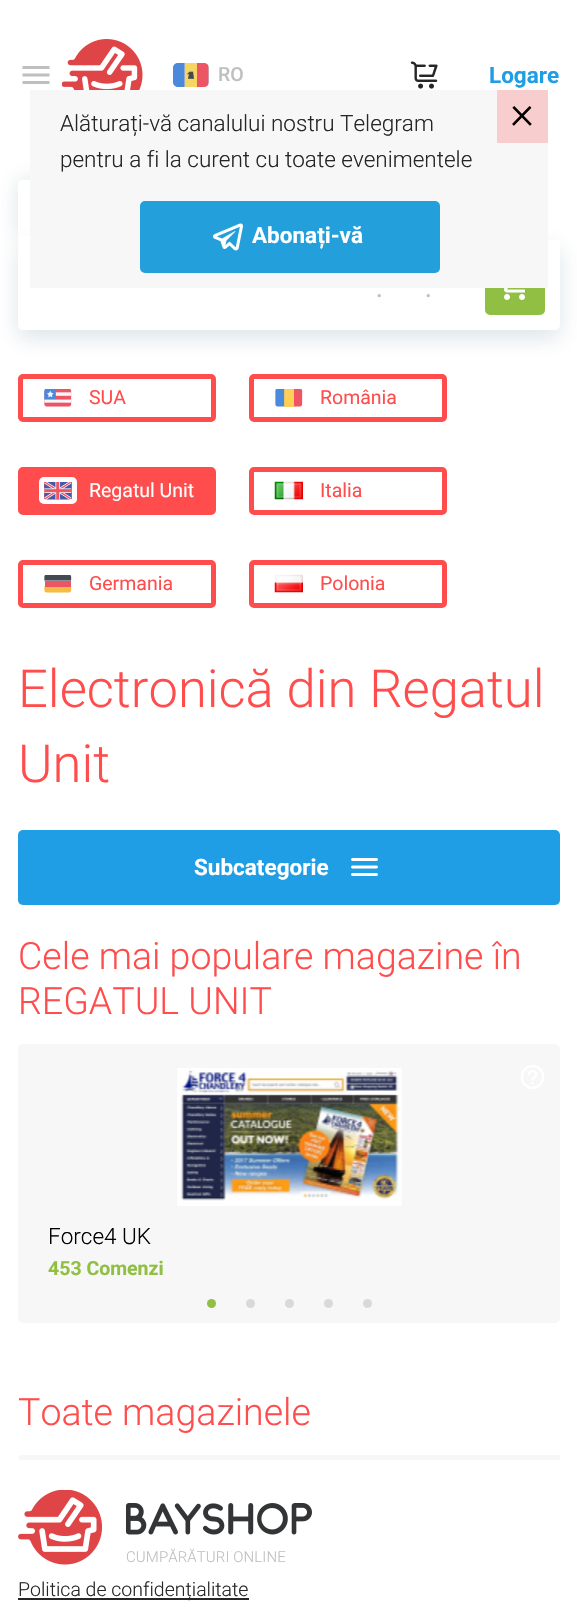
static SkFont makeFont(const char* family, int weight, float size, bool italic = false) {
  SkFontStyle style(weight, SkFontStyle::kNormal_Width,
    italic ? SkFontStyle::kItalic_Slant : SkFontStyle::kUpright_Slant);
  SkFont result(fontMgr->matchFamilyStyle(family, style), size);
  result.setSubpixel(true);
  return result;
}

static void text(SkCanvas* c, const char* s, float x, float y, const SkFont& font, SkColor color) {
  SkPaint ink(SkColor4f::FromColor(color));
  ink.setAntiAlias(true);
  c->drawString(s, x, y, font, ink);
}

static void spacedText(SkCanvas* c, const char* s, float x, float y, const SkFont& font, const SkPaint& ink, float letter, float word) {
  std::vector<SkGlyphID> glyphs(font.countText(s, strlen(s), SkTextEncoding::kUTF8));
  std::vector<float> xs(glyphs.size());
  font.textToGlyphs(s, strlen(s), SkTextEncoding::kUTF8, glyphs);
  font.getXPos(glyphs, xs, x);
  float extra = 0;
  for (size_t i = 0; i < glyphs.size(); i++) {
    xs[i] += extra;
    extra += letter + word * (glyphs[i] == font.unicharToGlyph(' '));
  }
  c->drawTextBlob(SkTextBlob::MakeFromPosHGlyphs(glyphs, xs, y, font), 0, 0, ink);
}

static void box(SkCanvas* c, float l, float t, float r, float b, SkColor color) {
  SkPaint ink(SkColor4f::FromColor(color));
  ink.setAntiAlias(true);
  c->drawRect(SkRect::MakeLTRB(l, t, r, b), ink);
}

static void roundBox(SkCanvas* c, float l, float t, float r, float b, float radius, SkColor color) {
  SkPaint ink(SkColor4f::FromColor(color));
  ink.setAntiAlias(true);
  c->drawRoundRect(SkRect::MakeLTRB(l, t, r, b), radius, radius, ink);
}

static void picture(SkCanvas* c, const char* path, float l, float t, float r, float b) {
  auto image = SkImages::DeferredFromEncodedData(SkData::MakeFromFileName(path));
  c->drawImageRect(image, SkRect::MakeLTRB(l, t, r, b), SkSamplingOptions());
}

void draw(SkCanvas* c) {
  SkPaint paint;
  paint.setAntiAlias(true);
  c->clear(0xffffffff);
  picture(c, "img_01.png", 22, 66, 50, 84);
  picture(c, "img_02.png", 62, 39, 143, 90);
  roundBox(c, 173, 63, 209, 87, 5, 0xffbfbfbf);
  picture(c, "img_03.png", 173, 63, 209, 87);
  SkFont face1 = makeFont("Roboto", 500, 19.5f);
  text(c, "RO", 218, 81, face1, 0xffbfbfbf);
  picture(c, "img_04.png", 410, 61, 438, 89);
  SkFont face2 = makeFont("Roboto", 700, 22.5f);
  text(c, "Logare", 489, 83, face2, 0xff1f9ee5);
  paint.setColor(0x26144b66);
  paint.setMaskFilter(SkMaskFilter::MakeBlur(kNormal_SkBlurStyle, 11));
  c->drawRoundRect(SkRect::MakeLTRB(18, 180, 290, 240), 5, 5, paint);
  paint.setMaskFilter(nullptr);
  paint.setColor(0xffffffff);
  c->drawPath(SkPathBuilder().moveTo(23, 180).lineTo(285, 180).cubicTo(288, 180, 290, 182, 290, 185).lineTo(290, 240).lineTo(18, 240).lineTo(18, 185).cubicTo(18, 182, 20, 180, 23, 180).close().detach(), paint);
  paint.setColor(0x26144b66);
  paint.setMaskFilter(SkMaskFilter::MakeBlur(kNormal_SkBlurStyle, 11));
  c->drawRoundRect(SkRect::MakeLTRB(18, 248, 560, 338), 5, 5, paint);
  paint.setMaskFilter(nullptr);
  box(c, 18, 236, 30, 240, 0xffffffff);
  paint.setColor(0xffffffff);
  c->drawPath(SkPathBuilder().moveTo(18, 240).lineTo(560, 240).lineTo(560, 325).cubicTo(560, 328, 558, 330, 555, 330).lineTo(23, 330).cubicTo(20, 330, 18, 328, 18, 325).close().detach(), paint);
  SkFont face3 = makeFont("Roboto", 300, 37.5f);
  text(c, ".", 375, 297, face3, 0xffbfbfbf);
  text(c, ".", 424, 297, face3, 0xffbfbfbf);
  paint.setColor(0xff90bf43);
  c->drawRoundRect(SkRect::MakeLTRB(487.5f, 257.5f, 542.5f, 312.5f), 2.5f, 2.5f, paint);
  paint.setStyle(SkPaint::kStroke_Style);
  paint.setStrokeWidth(5);
  c->drawRoundRect(SkRect::MakeLTRB(487.5f, 257.5f, 542.5f, 312.5f), 2.5f, 2.5f, paint);
  picture(c, "img_05.png", 504, 288, 525, 300);
  paint.setColor(0xffff4c4c);
  c->drawRoundRect(SkRect::MakeLTRB(20.5f, 376.5f, 213.5f, 419.5f), 2.5f, 2.5f, paint);
  picture(c, "img_06.png", 44, 389, 72, 407);
  SkFont face4 = makeFont("Roboto", 400, 19.5f);
  text(c, "SUA", 89, 404, face4, 0xffff4c4c);
  c->drawRoundRect(SkRect::MakeLTRB(251.5f, 376.5f, 444.5f, 419.5f), 2.5f, 2.5f, paint);
  picture(c, "img_07.png", 275, 389, 303, 407);
  text(c, "România", 320, 404, face4, 0xffff4c4c);
  paint.setStyle(SkPaint::kFill_Style);
  c->drawRoundRect(SkRect::MakeLTRB(20.5f, 469.5f, 213.5f, 512.5f), 2.5f, 2.5f, paint);
  paint.setStyle(SkPaint::kStroke_Style);
  c->drawRoundRect(SkRect::MakeLTRB(20.5f, 469.5f, 213.5f, 512.5f), 2.5f, 2.5f, paint);
  paint.setColor(0xffffffff);
  c->drawRoundRect(SkRect::MakeLTRB(41.5f, 479.5f, 74.5f, 501.5f), 2.5f, 2.5f, paint);
  picture(c, "img_08.png", 44, 482, 72, 500);
  text(c, "Regatul Unit", 89, 497, face4, 0xffffffff);
  paint.setColor(0xffff4c4c);
  c->drawRoundRect(SkRect::MakeLTRB(251.5f, 469.5f, 444.5f, 512.5f), 2.5f, 2.5f, paint);
  picture(c, "img_09.png", 274, 481, 303, 500);
  text(c, "Italia", 320, 497, face4, 0xffff4c4c);
  c->drawRoundRect(SkRect::MakeLTRB(20.5f, 562.5f, 213.5f, 605.5f), 2.5f, 2.5f, paint);
  picture(c, "img_10.png", 44, 575, 72, 593);
  text(c, "Germania", 89, 590, face4, 0xffff4c4c);
  c->drawRoundRect(SkRect::MakeLTRB(251.5f, 562.5f, 444.5f, 605.5f), 2.5f, 2.5f, paint);
  picture(c, "img_11.png", 274, 574, 303, 593);
  text(c, "Polonia", 320, 590, face4, 0xffff4c4c);
  SkFont face5 = makeFont("Roboto", 300, 52.5f);
  text(c, "Electronică din Regatul", 18, 707, face5, 0xffff4c4c);
  text(c, "Unit", 18, 782, face5, 0xffff4c4c);
  c->save();
  c->clipRect(SkRect::MakeLTRB(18, 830, 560, 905));
  paint.setStyle(SkPaint::kFill_Style);
  paint.setColor(0x26144b66);
  paint.setMaskFilter(SkMaskFilter::MakeBlur(kNormal_SkBlurStyle, 11));
  c->drawRoundRect(SkRect::MakeLTRB(18, 837, 560, 912), 5, 5, paint);
  paint.setMaskFilter(nullptr);
  c->restore();
  roundBox(c, 18, 830, 560, 905, 5, 0xff1f9ee5);
  text(c, "Subcategorie", 194, 875, face2, 0xffffffff);
  picture(c, "img_12.png", 351, 858, 378, 876);
  text(c, "Cele mai populare magazine în", 18, 969, face3, 0xffff4c4c);
  text(c, "REGATUL UNIT", 18, 1014, face3, 0xffff4c4c);
  roundBox(c, 18, 1044, 560, 1323, 5, 0xfff7f7f7);
  picture(c, "img_13.png", 521, 1065, 544, 1089);
  picture(c, "img_14.png", 177, 1068, 402, 1206);
  SkFont face6 = makeFont("Roboto", 300, 22.5f);
  text(c, "Force4 UK", 48, 1244, face6, 0xff000000);
  SkFont face7 = makeFont("Roboto", 700, 19.5f);
  text(c, "453 Comenzi", 48, 1275, face7, 0xff90bf43);
  paint.setColor(0xff90bf43);
  c->drawCircle(211.5f, 1303.5f, 4.5f, paint);
  paint.setColor(0xffd9d9d9);
  c->drawCircle(250.5f, 1303.5f, 4.5f, paint);
  c->drawCircle(289.5f, 1303.5f, 4.5f, paint);
  c->drawCircle(328.5f, 1303.5f, 4.5f, paint);
  c->drawCircle(367.5f, 1303.5f, 4.5f, paint);
  text(c, "Toate magazinele", 18, 1425, face3, 0xffff4c4c);
  box(c, 30, 90, 548, 288, 0xfff7f7f7);
  text(c, "Alăturați-vă canalului nostru Telegram", 60, 131, face6, 0xff262626);
  text(c, "pentru a fi la curent cu toate evenimentele", 60, 167, face6, 0xff262626);
  paint.setColor(0xff23a0dc);
  c->drawRoundRect(SkRect::MakeLTRB(142.5f, 203.5f, 437.5f, 270.5f), 2.5f, 2.5f, paint);
  paint.setStyle(SkPaint::kStroke_Style);
  c->drawRoundRect(SkRect::MakeLTRB(142.5f, 203.5f, 437.5f, 270.5f), 2.5f, 2.5f, paint);
  picture(c, "img_15.png", 213, 223, 243, 251);
  text(c, "Abonați-vă", 252, 243, face2, 0xffffffff);
  box(c, 497, 90, 548, 143, 0xfff8cdcd);
  SkFont face8 = makeFont("Roboto", 300, 46);
  text(c, "×", 510, 128, face8, 0xff000000);
  roundBox(c, 18, 1455, 560, 1460, 2.5f, 0xfff7f7f7);
  picture(c, "img_16.png", 18, 1490, 312, 1565);
  SkFont face9 = makeFont("Roboto", 300, 15);
  paint.setStyle(SkPaint::kFill_Style);
  paint.setColor(0xffbfbfbf);
  spacedText(c, "CUMPĂRĂTURI ONLINE", 126, 1562, face9, paint, 0.1f, 0);
  box(c, 18, 1598, 249, 1600, 0xff262626);
  SkFont face10 = makeFont("Roboto", 300, 19.5f);
  text(c, "Politica de confidențialitate", 18, 1596, face10, 0xff262626);
}
